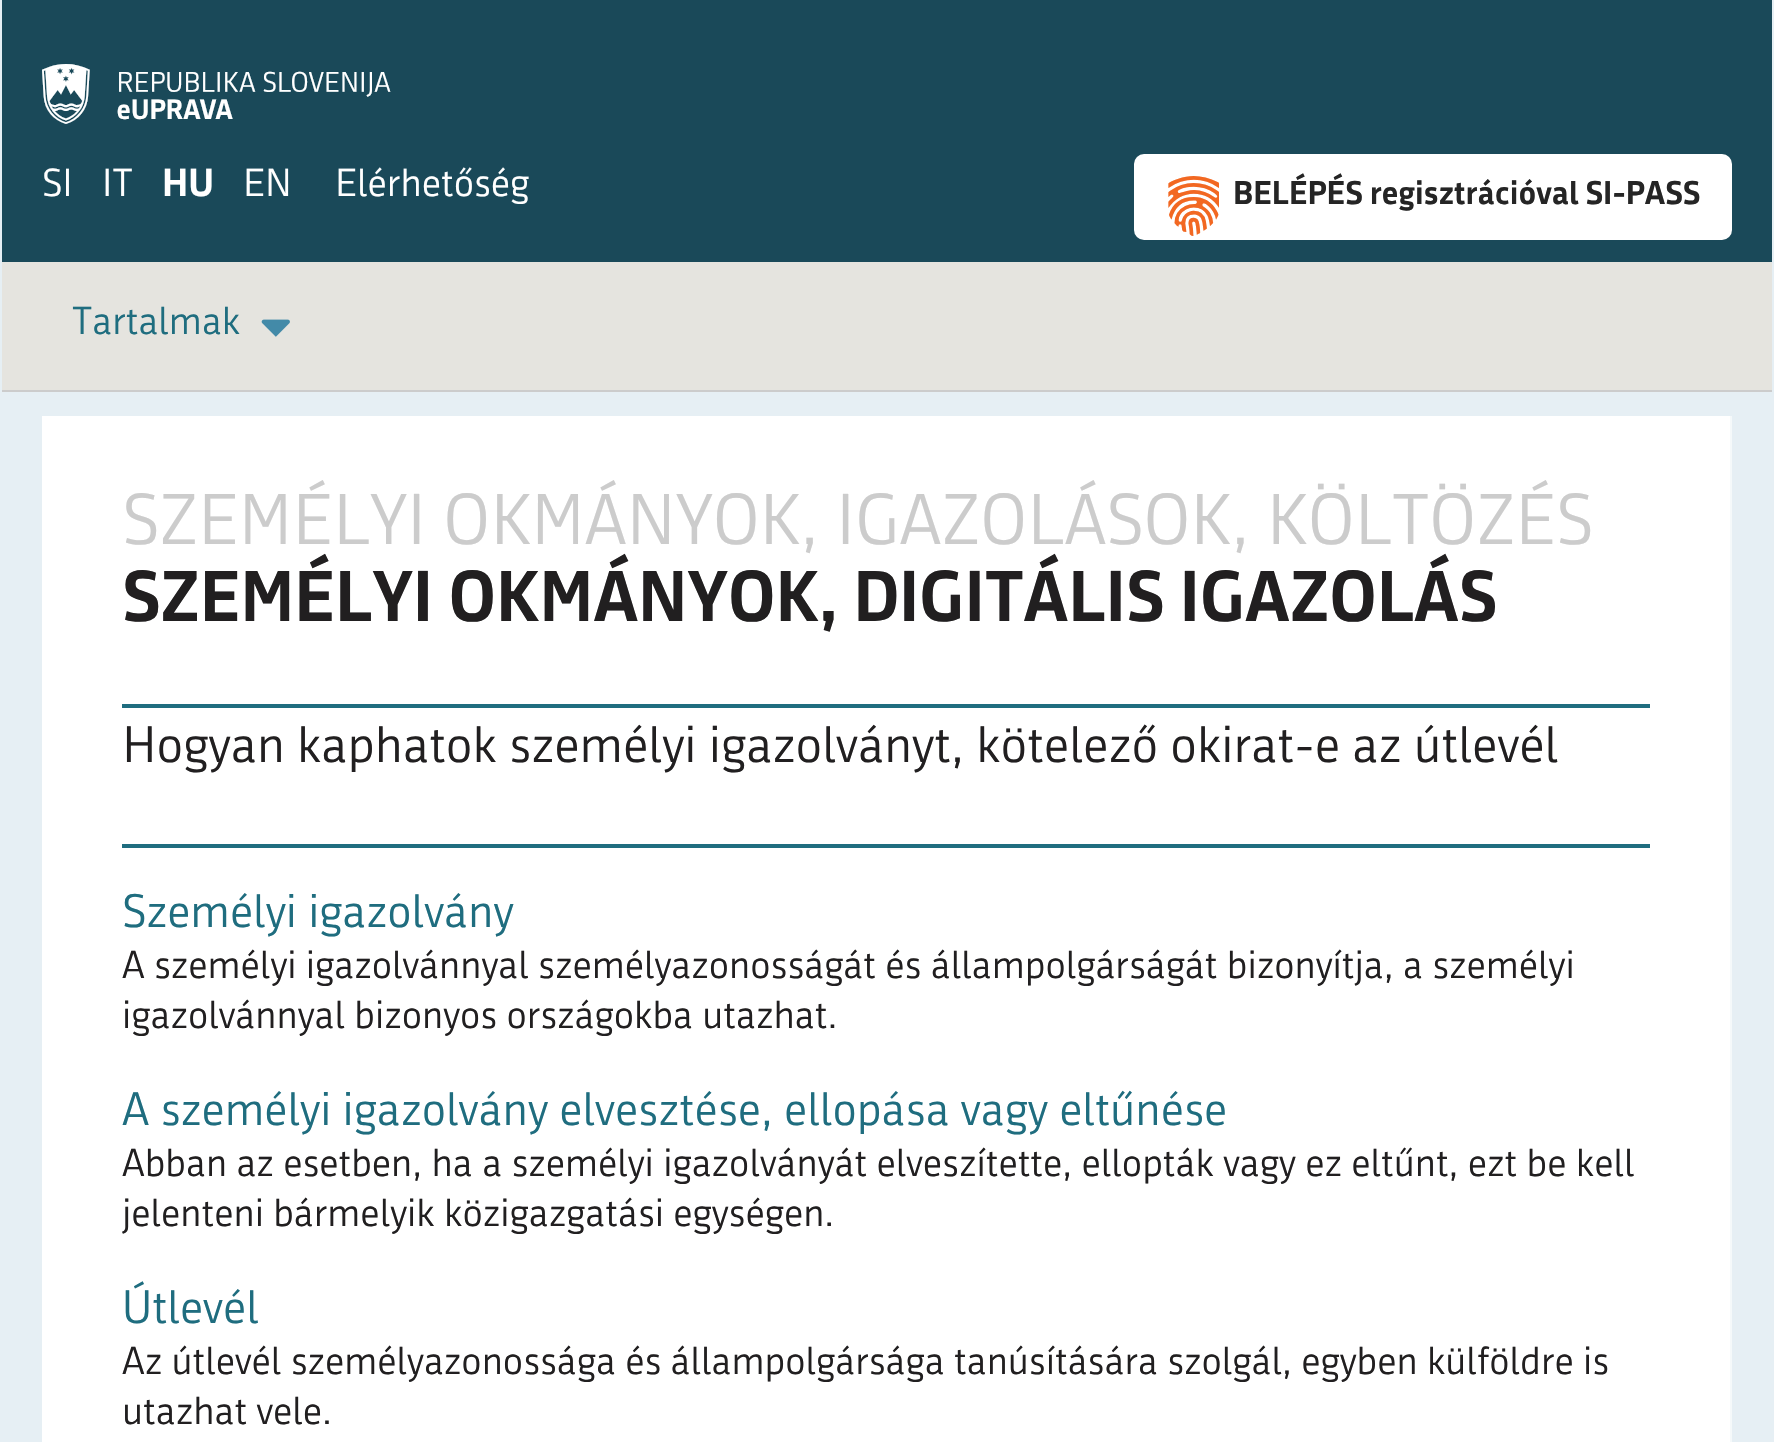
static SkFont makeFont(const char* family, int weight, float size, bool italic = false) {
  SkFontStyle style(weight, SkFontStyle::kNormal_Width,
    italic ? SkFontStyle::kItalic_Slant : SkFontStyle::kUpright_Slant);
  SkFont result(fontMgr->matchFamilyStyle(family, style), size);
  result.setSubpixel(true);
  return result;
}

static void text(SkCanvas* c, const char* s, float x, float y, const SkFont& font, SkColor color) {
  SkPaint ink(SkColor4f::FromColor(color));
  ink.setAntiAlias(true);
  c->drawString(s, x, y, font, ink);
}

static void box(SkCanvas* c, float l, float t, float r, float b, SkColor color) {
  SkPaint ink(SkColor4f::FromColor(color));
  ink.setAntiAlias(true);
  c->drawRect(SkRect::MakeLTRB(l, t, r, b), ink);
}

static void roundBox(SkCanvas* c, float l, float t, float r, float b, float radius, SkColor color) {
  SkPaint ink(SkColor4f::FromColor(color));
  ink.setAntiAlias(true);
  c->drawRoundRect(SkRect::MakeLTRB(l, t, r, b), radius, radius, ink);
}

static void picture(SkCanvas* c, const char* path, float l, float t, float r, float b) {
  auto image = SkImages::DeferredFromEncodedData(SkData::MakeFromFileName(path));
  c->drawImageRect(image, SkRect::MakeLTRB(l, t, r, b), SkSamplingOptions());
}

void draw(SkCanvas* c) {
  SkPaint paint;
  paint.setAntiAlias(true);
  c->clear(0xffe6eff4);
  box(c, 2, 0, 1772, 262, 0xff1a4959);
  SkFont face1 = makeFont("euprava", 400, 60);
  text(c, "1", 42, 124, face1, 0xffffffff);
  SkFont face2 = makeFont("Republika", 400, 38);
  text(c, "SI", 42, 196, face2, 0xffffffff);
  text(c, "IT", 102, 196, face2, 0xffffffff);
  SkFont face3 = makeFont("Republika", 700, 38);
  text(c, "HU", 162, 196, face3, 0xffffffff);
  text(c, "EN", 243, 196, face2, 0xffffffff);
  text(c, "Elérhetőség", 335, 196, face2, 0xffffffff);
  roundBox(c, 1134, 154, 1732, 240, 10, 0xffffffff);
  text(c, "'", 1165, 236, face1, 0xfff26822);
  SkFont face4 = makeFont("Republika", 700, 32);
  text(c, "BELÉPÉS regisztrációval SI-PASS", 1233, 204, face4, 0xff252525);
  box(c, 2, 262, 1772, 390, 0xffe5e4df);
  box(c, 2, 390, 1772, 392, 0xffcccccc);
  text(c, "Tartalmak", 72, 334, face2, 0xff1f6d7f);
  picture(c, "img_01.png", 261, 319, 290, 337);
  box(c, 42, 416, 1730, 1442, 0xffffffff);
  box(c, 1730, 416, 1732, 1442, 0xfff5f9fa);
  SkFont face5 = makeFont("Republika", 400, 70);
  text(c, "SZEMÉLYI OKMÁNYOK, IGAZOLÁSOK, KÖLTÖZÉS", 122, 544, face5, 0xffcccccc);
  SkFont face6 = makeFont("Republika", 700, 70);
  text(c, "SZEMÉLYI OKMÁNYOK, DIGITÁLIS IGAZOLÁS", 122, 621, face6, 0xff211f20);
  box(c, 122, 704, 1650, 708, 0xff1f6d7f);
  box(c, 122, 844, 1650, 848, 0xff1f6d7f);
  SkFont face7 = makeFont("Republika", 400, 50);
  text(c, "Hogyan kaphatok személyi igazolványt, kötelező okirat-e az útlevél", 122, 762, face7, 0xff211f20);
  SkFont face8 = makeFont("Republika", 400, 45.6f);
  text(c, "Személyi igazolvány", 122, 927, face8, 0xff1f6d7f);
  text(c, "A személyi igazolvánnyal személyazonosságát és állampolgárságát bizonyítja, a személyi", 122, 978, face2, 0xff211f20);
  text(c, "igazolvánnyal bizonyos országokba utazhat.", 122, 1028, face2, 0xff211f20);
  text(c, "A személyi igazolvány elvesztése, ellopása vagy eltűnése", 122, 1125, face8, 0xff1f6d7f);
  text(c, "Abban az esetben, ha a személyi igazolványát elveszítette, ellopták vagy ez eltűnt, ezt be kell", 122, 1176, face2, 0xff211f20);
  text(c, "jelenteni bármelyik közigazgatási egységen.", 122, 1226, face2, 0xff211f20);
  text(c, "Útlevél", 122, 1323, face8, 0xff1f6d7f);
  text(c, "Az útlevél személyazonossága és állampolgársága tanúsítására szolgál, egyben külföldre is", 122, 1374, face2, 0xff211f20);
  text(c, "utazhat vele.", 122, 1424, face2, 0xff211f20);
}
